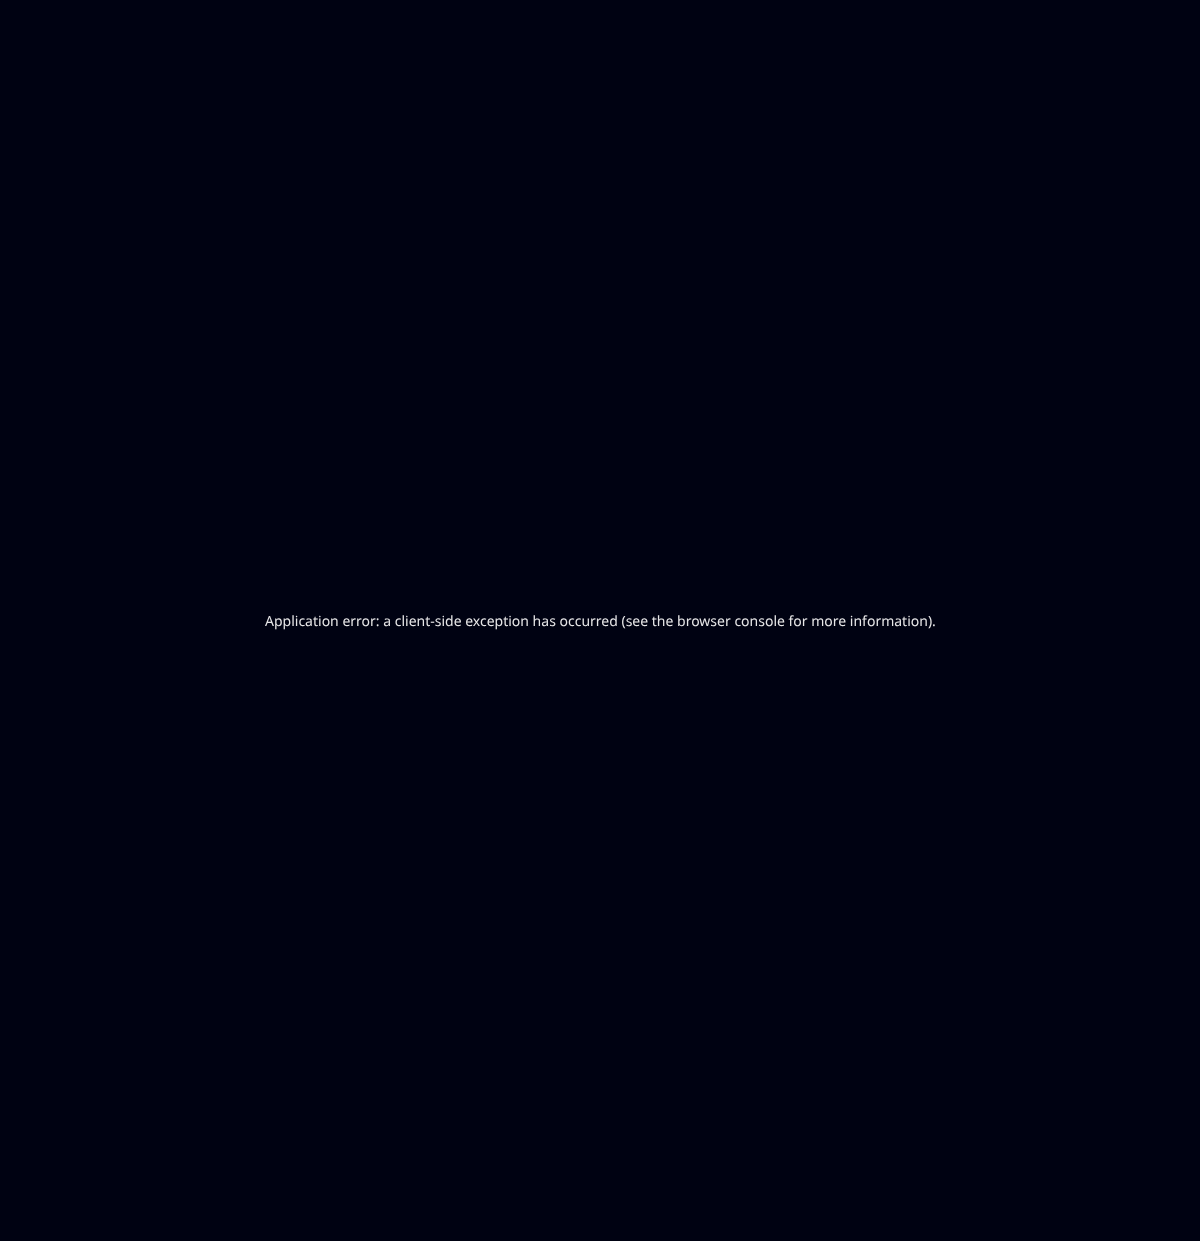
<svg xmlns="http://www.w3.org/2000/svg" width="1200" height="1241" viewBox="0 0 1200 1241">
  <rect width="100%" height="100%" fill="rgb(0,2,18)"/>
  <text x="265" y="626" font-family="Noto Sans" font-size="14" fill="rgb(230,230,231)">Application error: a client-side exception has occurred (see the browser console for more information).</text>
</svg>
